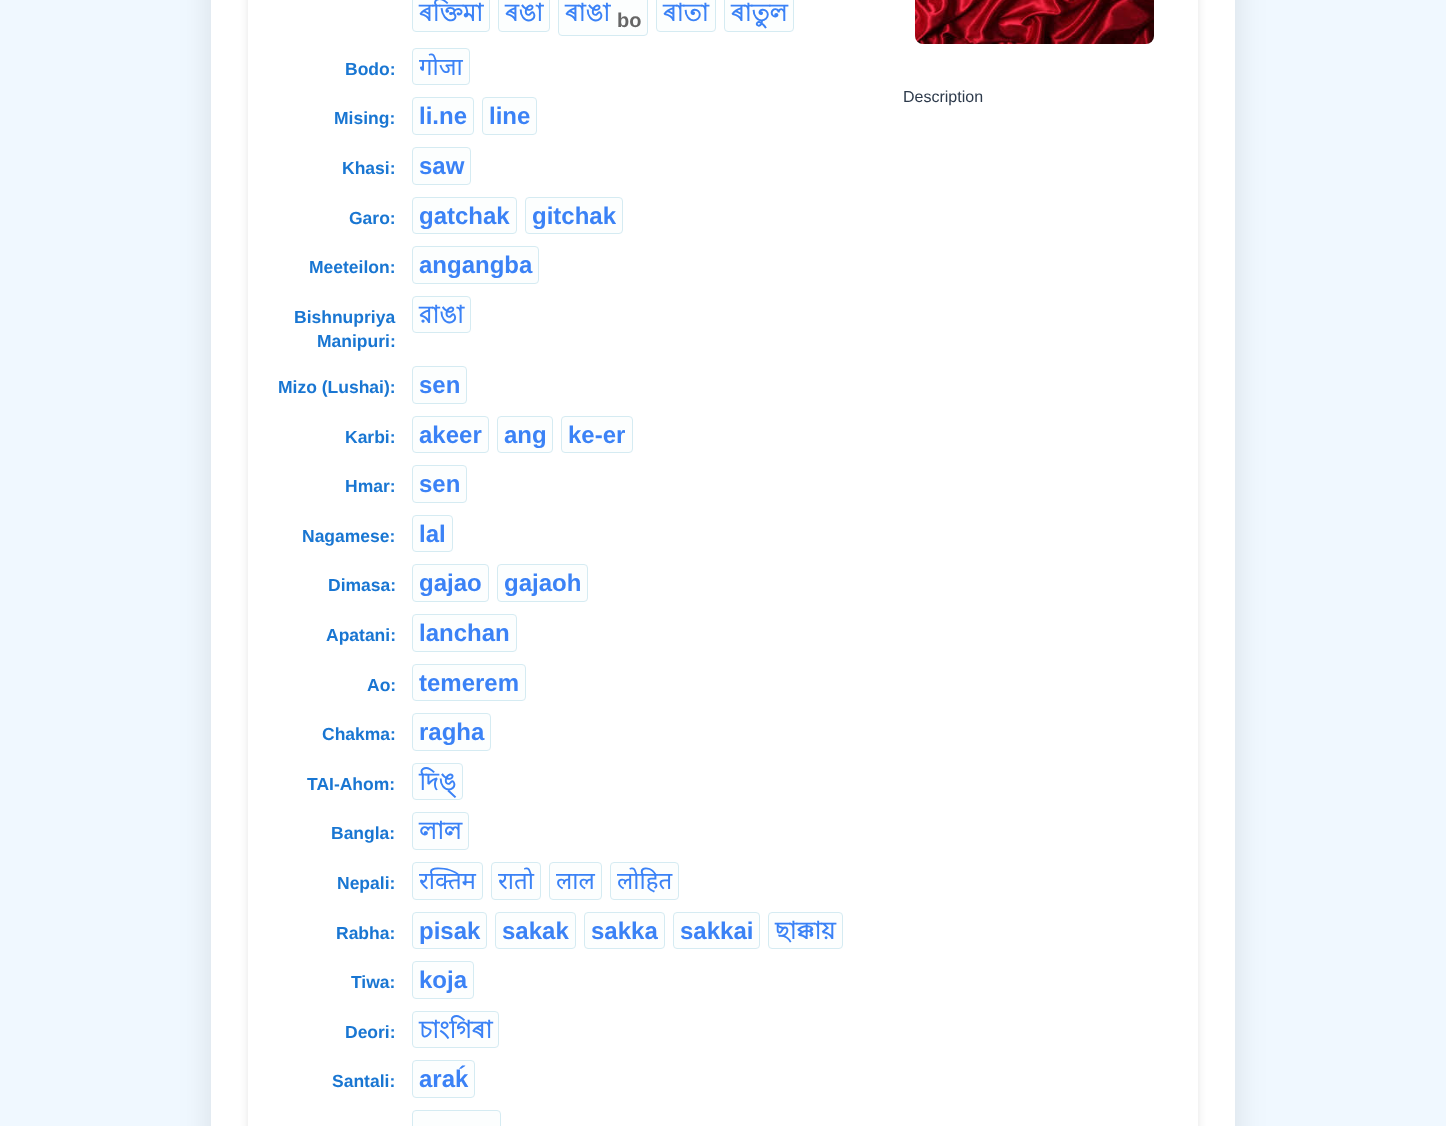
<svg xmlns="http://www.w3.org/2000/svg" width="1446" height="1126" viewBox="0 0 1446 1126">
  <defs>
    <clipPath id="clip1"><path d="M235 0H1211V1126H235ZM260-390H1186C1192.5-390 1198-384.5 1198-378V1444C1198 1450.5 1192.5 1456 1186 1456H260C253.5 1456 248 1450.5 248 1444V-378C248-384.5 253.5-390 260-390Z" clip-rule="evenodd"/></clipPath>
  </defs>
  <rect width="100%" height="100%" fill="rgb(240,248,255)"/>
  <rect x="211" y="-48" width="1024" height="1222" fill="rgba(0,0,0,0.1)" filter="blur(16px)"/>
  <rect x="211" y="0" width="1024" height="1126" fill="rgb(255,255,255)"/>
  <g clip-path="url(#clip1)">
    <rect x="248" y="-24" width="950" height="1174" rx="12" fill="rgba(0,0,0,0.1)" filter="blur(4px)"/>
  </g>
  <rect x="412.5" y="-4.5" width="77" height="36" rx="3.5" fill="rgb(252,254,254)" stroke="rgb(213,235,242)"/>
  <text x="419" y="21" font-family="Lohit Bengali" font-size="24" font-weight="bold" fill="rgb(59,130,246)">ৰক্তিমা</text>
  <rect x="498.5" y="-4.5" width="51" height="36" rx="3.5" fill="rgb(252,254,254)" stroke="rgb(213,235,242)"/>
  <text x="505" y="21" font-family="Lohit Bengali" font-size="24" font-weight="bold" fill="rgb(59,130,246)">ৰঙা</text>
  <rect x="558.5" y="-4.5" width="89" height="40" rx="3.5" fill="rgb(252,254,254)" stroke="rgb(213,235,242)"/>
  <text x="565" y="21" font-family="Lohit Bengali" font-size="24" font-weight="bold" fill="rgb(59,130,246)">ৰাঙা</text>
  <text x="617" y="27" font-family="Liberation Sans" font-size="20" font-weight="bold" fill="rgb(102,102,102)">bo</text>
  <rect x="656.5" y="-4.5" width="59" height="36" rx="3.5" fill="rgb(252,254,254)" stroke="rgb(213,235,242)"/>
  <text x="663" y="21" font-family="Lohit Bengali" font-size="24" font-weight="bold" fill="rgb(59,130,246)">ৰাতা</text>
  <rect x="724.5" y="-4.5" width="69" height="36" rx="3.5" fill="rgb(252,254,254)" stroke="rgb(213,235,242)"/>
  <text x="731" y="21" font-family="Lohit Bengali" font-size="24" font-weight="bold" fill="rgb(59,130,246)">ৰাতুল</text>
  <text x="345" y="75" font-family="Liberation Sans" font-size="17.5" font-weight="bold" fill="rgb(25,118,210)">Bodo:</text>
  <rect x="412.5" y="48.5" width="57" height="36" rx="3.5" fill="rgb(252,254,254)" stroke="rgb(213,235,242)"/>
  <text x="419" y="75" font-family="Noto Sans" font-size="24" fill="rgb(59,130,246)">गोजा</text>
  <text x="334" y="124" font-family="Liberation Sans" font-size="17.5" font-weight="bold" fill="rgb(25,118,210)">Mising:</text>
  <rect x="412.5" y="97.5" width="61" height="37" rx="3.5" fill="rgb(252,254,254)" stroke="rgb(213,235,242)"/>
  <text x="419" y="124" font-family="Liberation Sans" font-size="24" font-weight="bold" fill="rgb(59,130,246)">li.ne</text>
  <rect x="482.5" y="97.5" width="54" height="37" rx="3.5" fill="rgb(252,254,254)" stroke="rgb(213,235,242)"/>
  <text x="489" y="124" font-family="Liberation Sans" font-size="24" font-weight="bold" fill="rgb(59,130,246)">line</text>
  <text x="342" y="174" font-family="Liberation Sans" font-size="17.5" font-weight="bold" fill="rgb(25,118,210)">Khasi:</text>
  <rect x="412.5" y="147.5" width="58" height="37" rx="3.5" fill="rgb(252,254,254)" stroke="rgb(213,235,242)"/>
  <text x="419" y="174" font-family="Liberation Sans" font-size="24" font-weight="bold" fill="rgb(59,130,246)">saw</text>
  <text x="349" y="224" font-family="Liberation Sans" font-size="17.5" font-weight="bold" fill="rgb(25,118,210)">Garo:</text>
  <rect x="412.5" y="197.5" width="104" height="36" rx="3.5" fill="rgb(252,254,254)" stroke="rgb(213,235,242)"/>
  <text x="419" y="224" font-family="Liberation Sans" font-size="24" font-weight="bold" fill="rgb(59,130,246)">gatchak</text>
  <rect x="525.5" y="197.5" width="97" height="36" rx="3.5" fill="rgb(252,254,254)" stroke="rgb(213,235,242)"/>
  <text x="532" y="224" font-family="Liberation Sans" font-size="24" font-weight="bold" fill="rgb(59,130,246)">gitchak</text>
  <text x="309" y="273" font-family="Liberation Sans" font-size="17.5" font-weight="bold" fill="rgb(25,118,210)">Meeteilon:</text>
  <rect x="412.5" y="246.5" width="126" height="37" rx="3.5" fill="rgb(252,254,254)" stroke="rgb(213,235,242)"/>
  <text x="419" y="273" font-family="Liberation Sans" font-size="24" font-weight="bold" fill="rgb(59,130,246)">angangba</text>
  <g font-family="Liberation Sans" font-size="17.5" font-weight="bold" fill="rgb(25,118,210)">
    <text x="294" y="323">Bishnupriya</text>
    <text x="317" y="347">Manipuri:</text>
  </g>
  <rect x="412.5" y="296.5" width="58" height="36" rx="3.5" fill="rgb(252,254,254)" stroke="rgb(213,235,242)"/>
  <text x="419" y="323" font-family="Lohit Bengali" font-size="24" font-weight="bold" fill="rgb(59,130,246)">রাঙা</text>
  <text x="278" y="393" font-family="Liberation Sans" font-size="17.5" font-weight="bold" fill="rgb(25,118,210)">Mizo (Lushai):</text>
  <rect x="412.5" y="366.5" width="54" height="37" rx="3.5" fill="rgb(252,254,254)" stroke="rgb(213,235,242)"/>
  <text x="419" y="393" font-family="Liberation Sans" font-size="24" font-weight="bold" fill="rgb(59,130,246)">sen</text>
  <text x="345" y="443" font-family="Liberation Sans" font-size="17.5" font-weight="bold" fill="rgb(25,118,210)">Karbi:</text>
  <rect x="412.5" y="416.5" width="76" height="36" rx="3.5" fill="rgb(252,254,254)" stroke="rgb(213,235,242)"/>
  <text x="419" y="443" font-family="Liberation Sans" font-size="24" font-weight="bold" fill="rgb(59,130,246)">akeer</text>
  <rect x="497.5" y="416.5" width="55" height="36" rx="3.5" fill="rgb(252,254,254)" stroke="rgb(213,235,242)"/>
  <text x="504" y="443" font-family="Liberation Sans" font-size="24" font-weight="bold" fill="rgb(59,130,246)">ang</text>
  <rect x="561.5" y="416.5" width="71" height="36" rx="3.5" fill="rgb(252,254,254)" stroke="rgb(213,235,242)"/>
  <text x="568" y="443" font-family="Liberation Sans" font-size="24" font-weight="bold" fill="rgb(59,130,246)">ke-er</text>
  <text x="345" y="492" font-family="Liberation Sans" font-size="17.5" font-weight="bold" fill="rgb(25,118,210)">Hmar:</text>
  <rect x="412.5" y="465.5" width="54" height="37" rx="3.5" fill="rgb(252,254,254)" stroke="rgb(213,235,242)"/>
  <text x="419" y="492" font-family="Liberation Sans" font-size="24" font-weight="bold" fill="rgb(59,130,246)">sen</text>
  <text x="302" y="542" font-family="Liberation Sans" font-size="17.5" font-weight="bold" fill="rgb(25,118,210)">Nagamese:</text>
  <rect x="412.5" y="515.5" width="40" height="36" rx="3.5" fill="rgb(252,254,254)" stroke="rgb(213,235,242)"/>
  <text x="419" y="542" font-family="Liberation Sans" font-size="24" font-weight="bold" fill="rgb(59,130,246)">lal</text>
  <text x="328" y="591" font-family="Liberation Sans" font-size="17.5" font-weight="bold" fill="rgb(25,118,210)">Dimasa:</text>
  <rect x="412.5" y="564.5" width="76" height="37" rx="3.5" fill="rgb(252,254,254)" stroke="rgb(213,235,242)"/>
  <text x="419" y="591" font-family="Liberation Sans" font-size="24" font-weight="bold" fill="rgb(59,130,246)">gajao</text>
  <rect x="497.5" y="564.5" width="90" height="37" rx="3.5" fill="rgb(252,254,254)" stroke="rgb(213,235,242)"/>
  <text x="504" y="591" font-family="Liberation Sans" font-size="24" font-weight="bold" fill="rgb(59,130,246)">gajaoh</text>
  <text x="326" y="641" font-family="Liberation Sans" font-size="17.5" font-weight="bold" fill="rgb(25,118,210)">Apatani:</text>
  <rect x="412.5" y="614.5" width="104" height="37" rx="3.5" fill="rgb(252,254,254)" stroke="rgb(213,235,242)"/>
  <text x="419" y="641" font-family="Liberation Sans" font-size="24" font-weight="bold" fill="rgb(59,130,246)">lanchan</text>
  <text x="367" y="691" font-family="Liberation Sans" font-size="17.5" font-weight="bold" fill="rgb(25,118,210)">Ao:</text>
  <rect x="412.5" y="664.5" width="113" height="36" rx="3.5" fill="rgb(252,254,254)" stroke="rgb(213,235,242)"/>
  <text x="419" y="691" font-family="Liberation Sans" font-size="24" font-weight="bold" fill="rgb(59,130,246)">temerem</text>
  <text x="322" y="740" font-family="Liberation Sans" font-size="17.5" font-weight="bold" fill="rgb(25,118,210)">Chakma:</text>
  <rect x="412.5" y="713.5" width="78" height="37" rx="3.5" fill="rgb(252,254,254)" stroke="rgb(213,235,242)"/>
  <text x="419" y="740" font-family="Liberation Sans" font-size="24" font-weight="bold" fill="rgb(59,130,246)">ragha</text>
  <text x="307" y="790" font-family="Liberation Sans" font-size="17.5" font-weight="bold" fill="rgb(25,118,210)">TAI-Ahom:</text>
  <rect x="412.5" y="763.5" width="50" height="36" rx="3.5" fill="rgb(252,254,254)" stroke="rgb(213,235,242)"/>
  <text x="419" y="790" font-family="Lohit Bengali" font-size="24" font-weight="bold" fill="rgb(59,130,246)">দিঙ্</text>
  <text x="331" y="839" font-family="Liberation Sans" font-size="17.5" font-weight="bold" fill="rgb(25,118,210)">Bangla:</text>
  <rect x="412.5" y="812.5" width="56" height="37" rx="3.5" fill="rgb(252,254,254)" stroke="rgb(213,235,242)"/>
  <text x="419" y="839" font-family="Lohit Bengali" font-size="24" font-weight="bold" fill="rgb(59,130,246)">লাল</text>
  <text x="337" y="889" font-family="Liberation Sans" font-size="17.5" font-weight="bold" fill="rgb(25,118,210)">Nepali:</text>
  <rect x="412.5" y="862.5" width="70" height="37" rx="3.5" fill="rgb(252,254,254)" stroke="rgb(213,235,242)"/>
  <text x="419" y="889" font-family="Noto Sans" font-size="24" fill="rgb(59,130,246)">रक्तिम</text>
  <rect x="491.5" y="862.5" width="49" height="37" rx="3.5" fill="rgb(252,254,254)" stroke="rgb(213,235,242)"/>
  <text x="498" y="889" font-family="Noto Sans" font-size="24" fill="rgb(59,130,246)">रातो</text>
  <rect x="549.5" y="862.5" width="52" height="37" rx="3.5" fill="rgb(252,254,254)" stroke="rgb(213,235,242)"/>
  <text x="556" y="889" font-family="Noto Sans" font-size="24" fill="rgb(59,130,246)">लाल</text>
  <rect x="610.5" y="862.5" width="68" height="37" rx="3.5" fill="rgb(252,254,254)" stroke="rgb(213,235,242)"/>
  <text x="617" y="889" font-family="Noto Sans" font-size="24" fill="rgb(59,130,246)">लोहित</text>
  <text x="336" y="939" font-family="Liberation Sans" font-size="17.5" font-weight="bold" fill="rgb(25,118,210)">Rabha:</text>
  <rect x="412.5" y="912.5" width="74" height="36" rx="3.5" fill="rgb(252,254,254)" stroke="rgb(213,235,242)"/>
  <text x="419" y="939" font-family="Liberation Sans" font-size="24" font-weight="bold" fill="rgb(59,130,246)">pisak</text>
  <rect x="495.5" y="912.5" width="80" height="36" rx="3.5" fill="rgb(252,254,254)" stroke="rgb(213,235,242)"/>
  <text x="502" y="939" font-family="Liberation Sans" font-size="24" font-weight="bold" fill="rgb(59,130,246)">sakak</text>
  <rect x="584.5" y="912.5" width="80" height="36" rx="3.5" fill="rgb(252,254,254)" stroke="rgb(213,235,242)"/>
  <text x="591" y="939" font-family="Liberation Sans" font-size="24" font-weight="bold" fill="rgb(59,130,246)">sakka</text>
  <rect x="673.5" y="912.5" width="86" height="36" rx="3.5" fill="rgb(252,254,254)" stroke="rgb(213,235,242)"/>
  <text x="680" y="939" font-family="Liberation Sans" font-size="24" font-weight="bold" fill="rgb(59,130,246)">sakkai</text>
  <rect x="768.5" y="912.5" width="74" height="36" rx="3.5" fill="rgb(252,254,254)" stroke="rgb(213,235,242)"/>
  <text x="775" y="939" font-family="Lohit Bengali" font-size="24" font-weight="bold" fill="rgb(59,130,246)">ছাক্কায়</text>
  <text x="351" y="988" font-family="Liberation Sans" font-size="17.5" font-weight="bold" fill="rgb(25,118,210)">Tiwa:</text>
  <rect x="412.5" y="961.5" width="61" height="37" rx="3.5" fill="rgb(252,254,254)" stroke="rgb(213,235,242)"/>
  <text x="419" y="988" font-family="Liberation Sans" font-size="24" font-weight="bold" fill="rgb(59,130,246)">koja</text>
  <text x="345" y="1038" font-family="Liberation Sans" font-size="17.5" font-weight="bold" fill="rgb(25,118,210)">Deori:</text>
  <rect x="412.5" y="1011.5" width="86" height="36" rx="3.5" fill="rgb(252,254,254)" stroke="rgb(213,235,242)"/>
  <text x="419" y="1038" font-family="Lohit Bengali" font-size="24" font-weight="bold" fill="rgb(59,130,246)">চাংগিৰা</text>
  <text x="332" y="1087" font-family="Liberation Sans" font-size="17.5" font-weight="bold" fill="rgb(25,118,210)">Santali:</text>
  <rect x="412.5" y="1060.5" width="62" height="37" rx="3.5" fill="rgb(252,254,254)" stroke="rgb(213,235,242)"/>
  <text x="419" y="1087" font-family="Liberation Sans" font-size="24" font-weight="bold" fill="rgb(59,130,246)">araḱ</text>
  <rect x="412.5" y="1110.5" width="88" height="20" rx="3.5" fill="rgb(252,254,254)" stroke="rgb(213,235,242)"/>
  <image x="915" y="0" width="239" height="44" href="pic1.png"/>
  <text x="903" y="102" font-family="Liberation Sans" font-size="16" fill="rgb(45,58,75)">Description</text>
</svg>
